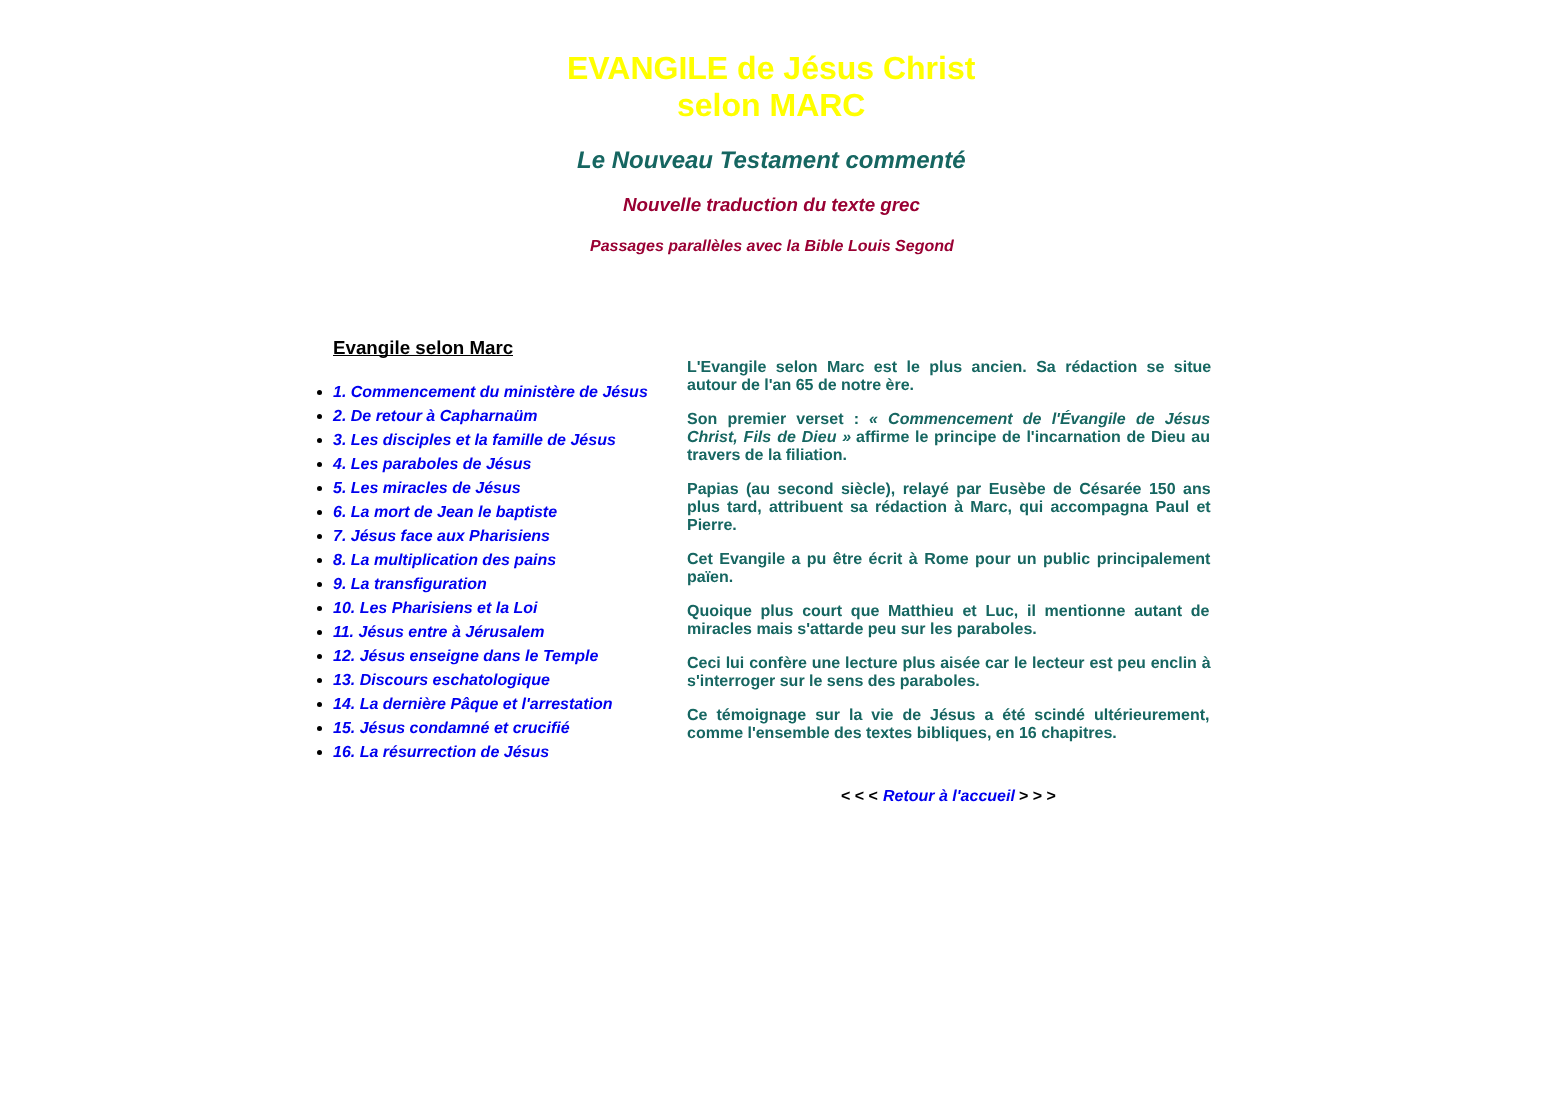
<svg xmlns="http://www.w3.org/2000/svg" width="1543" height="1103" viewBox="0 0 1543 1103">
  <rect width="100%" height="100%" fill="rgb(255,255,255)"/>
  <g font-family="Liberation Sans" font-size="32" font-weight="bold" fill="rgb(255,255,0)">
    <text x="567" y="79">EVANGILE de Jésus Christ</text>
    <text x="677" y="116">selon MARC</text>
  </g>
  <text x="577" y="168" font-family="Liberation Sans" font-size="24" font-weight="bold" font-style="italic" fill="rgb(22,102,97)">Le Nouveau Testament commenté</text>
  <text x="623" y="211" font-family="Liberation Sans" font-size="18.75" font-weight="bold" font-style="italic" fill="rgb(153,0,51)">Nouvelle traduction du texte grec</text>
  <text x="590" y="251" font-family="Liberation Sans" font-size="16" font-weight="bold" font-style="italic" fill="rgb(153,0,51)">Passages parallèles avec la Bible Louis Segond</text>
  <rect x="333" y="355" width="180" height="1" fill="rgb(0,0,0)"/>
  <text x="333" y="354" font-family="Liberation Sans" font-size="18.75" font-weight="bold" fill="rgb(0,0,0)">Evangile selon Marc</text>
  <circle cx="319.5" cy="392.5" r="2.5" fill="rgb(0,0,0)"/>
  <text x="333" y="397" font-family="Liberation Sans" font-size="16" font-weight="bold" font-style="italic" fill="rgb(0,0,238)">1. Commencement du ministère de Jésus</text>
  <circle cx="319.5" cy="416.5" r="2.5" fill="rgb(0,0,0)"/>
  <text x="333" y="421" font-family="Liberation Sans" font-size="16" font-weight="bold" font-style="italic" fill="rgb(0,0,238)">2. De retour à Capharnaüm</text>
  <circle cx="319.5" cy="440.5" r="2.5" fill="rgb(0,0,0)"/>
  <text x="333" y="445" font-family="Liberation Sans" font-size="16" font-weight="bold" font-style="italic" fill="rgb(0,0,238)">3. Les disciples et la famille de Jésus</text>
  <circle cx="319.5" cy="464.5" r="2.5" fill="rgb(0,0,0)"/>
  <text x="333" y="469" font-family="Liberation Sans" font-size="16" font-weight="bold" font-style="italic" fill="rgb(0,0,238)">4. Les paraboles de Jésus</text>
  <circle cx="319.5" cy="488.5" r="2.5" fill="rgb(0,0,0)"/>
  <text x="333" y="493" font-family="Liberation Sans" font-size="16" font-weight="bold" font-style="italic" fill="rgb(0,0,238)">5. Les miracles de Jésus</text>
  <circle cx="319.5" cy="512.5" r="2.5" fill="rgb(0,0,0)"/>
  <text x="333" y="517" font-family="Liberation Sans" font-size="16" font-weight="bold" font-style="italic" fill="rgb(0,0,238)">6. La mort de Jean le baptiste</text>
  <circle cx="319.5" cy="536.5" r="2.5" fill="rgb(0,0,0)"/>
  <text x="333" y="541" font-family="Liberation Sans" font-size="16" font-weight="bold" font-style="italic" fill="rgb(0,0,238)">7. Jésus face aux Pharisiens</text>
  <circle cx="319.5" cy="560.5" r="2.5" fill="rgb(0,0,0)"/>
  <text x="333" y="565" font-family="Liberation Sans" font-size="16" font-weight="bold" font-style="italic" fill="rgb(0,0,238)">8. La multiplication des pains</text>
  <circle cx="319.5" cy="584.5" r="2.5" fill="rgb(0,0,0)"/>
  <text x="333" y="589" font-family="Liberation Sans" font-size="16" font-weight="bold" font-style="italic" fill="rgb(0,0,238)">9. La transfiguration</text>
  <circle cx="319.5" cy="608.5" r="2.5" fill="rgb(0,0,0)"/>
  <text x="333" y="613" font-family="Liberation Sans" font-size="16" font-weight="bold" font-style="italic" fill="rgb(0,0,238)">10. Les Pharisiens et la Loi</text>
  <circle cx="319.5" cy="632.5" r="2.5" fill="rgb(0,0,0)"/>
  <text x="333" y="637" font-family="Liberation Sans" font-size="16" font-weight="bold" font-style="italic" fill="rgb(0,0,238)">11. Jésus entre à Jérusalem</text>
  <circle cx="319.5" cy="656.5" r="2.5" fill="rgb(0,0,0)"/>
  <text x="333" y="661" font-family="Liberation Sans" font-size="16" font-weight="bold" font-style="italic" fill="rgb(0,0,238)">12. Jésus enseigne dans le Temple</text>
  <circle cx="319.5" cy="680.5" r="2.5" fill="rgb(0,0,0)"/>
  <text x="333" y="685" font-family="Liberation Sans" font-size="16" font-weight="bold" font-style="italic" fill="rgb(0,0,238)">13. Discours eschatologique</text>
  <circle cx="319.5" cy="704.5" r="2.5" fill="rgb(0,0,0)"/>
  <text x="333" y="709" font-family="Liberation Sans" font-size="16" font-weight="bold" font-style="italic" fill="rgb(0,0,238)">14. La dernière Pâque et l'arrestation</text>
  <circle cx="319.5" cy="728.5" r="2.5" fill="rgb(0,0,0)"/>
  <text x="333" y="733" font-family="Liberation Sans" font-size="16" font-weight="bold" font-style="italic" fill="rgb(0,0,238)">15. Jésus condamné et crucifié</text>
  <circle cx="319.5" cy="752.5" r="2.5" fill="rgb(0,0,0)"/>
  <text x="333" y="757" font-family="Liberation Sans" font-size="16" font-weight="bold" font-style="italic" fill="rgb(0,0,238)">16. La résurrection de Jésus</text>
  <g font-family="Liberation Sans" font-size="16" font-weight="bold" fill="rgb(22,102,97)">
    <text>
      <tspan x="687" y="372" word-spacing="5">L'Evangile selon Marc est le plus ancien. Sa rédaction se situe</tspan>
      <tspan x="687" y="390">autour de l'an 65 de notre ère.</tspan>
    </text>
    <text x="687" y="424" word-spacing="5.75">Son premier verset :</text>
  </g>
  <g font-family="Liberation Sans" font-size="16" font-weight="bold" font-style="italic" fill="rgb(22,102,97)">
    <text x="869" y="424" word-spacing="5.75">« Commencement de l'Évangile de Jésus</text>
    <text x="687" y="442" word-spacing="1.5">Christ, Fils de Dieu »</text>
  </g>
  <g font-family="Liberation Sans" font-size="16" font-weight="bold" fill="rgb(22,102,97)">
    <text x="856" y="442" word-spacing="1.25">affirme le principe de l'incarnation de Dieu au</text>
    <text x="687" y="460">travers de la filiation.</text>
    <text>
      <tspan x="687" y="494" word-spacing="3">Papias (au second siècle), relayé par Eusèbe de Césarée 150 ans</tspan>
      <tspan x="687" y="512" word-spacing="2.75">plus tard, attribuent sa rédaction à Marc, qui accompagna Paul et</tspan>
      <tspan x="687" y="530">Pierre.</tspan>
    </text>
    <text>
      <tspan x="687" y="564" word-spacing="2">Cet Evangile a pu être écrit à Rome pour un public principalement</tspan>
      <tspan x="687" y="582">païen.</tspan>
    </text>
    <text>
      <tspan x="687" y="616" word-spacing="4.25">Quoique plus court que Matthieu et Luc, il mentionne autant de</tspan>
      <tspan x="687" y="634">miracles mais s'attarde peu sur les paraboles.</tspan>
    </text>
    <text>
      <tspan x="687" y="668" word-spacing="0.4">Ceci lui confère une lecture plus aisée car le lecteur est peu enclin à</tspan>
      <tspan x="687" y="686">s'interroger sur le sens des paraboles.</tspan>
    </text>
    <text>
      <tspan x="687" y="720" word-spacing="4.5">Ce témoignage sur la vie de Jésus a été scindé ultérieurement,</tspan>
      <tspan x="687" y="738">comme l'ensemble des textes bibliques, en 16 chapitres.</tspan>
    </text>
  </g>
  <text x="841" y="801" font-family="Liberation Sans" font-size="16" font-weight="bold" fill="rgb(0,0,0)">&lt; &lt; &lt;</text>
  <text x="883" y="801" font-family="Liberation Sans" font-size="16" font-weight="bold" font-style="italic" fill="rgb(0,0,238)">Retour à l'accueil</text>
  <text x="1019" y="801" font-family="Liberation Sans" font-size="16" font-weight="bold" fill="rgb(0,0,0)">&gt; &gt; &gt;</text>
</svg>
